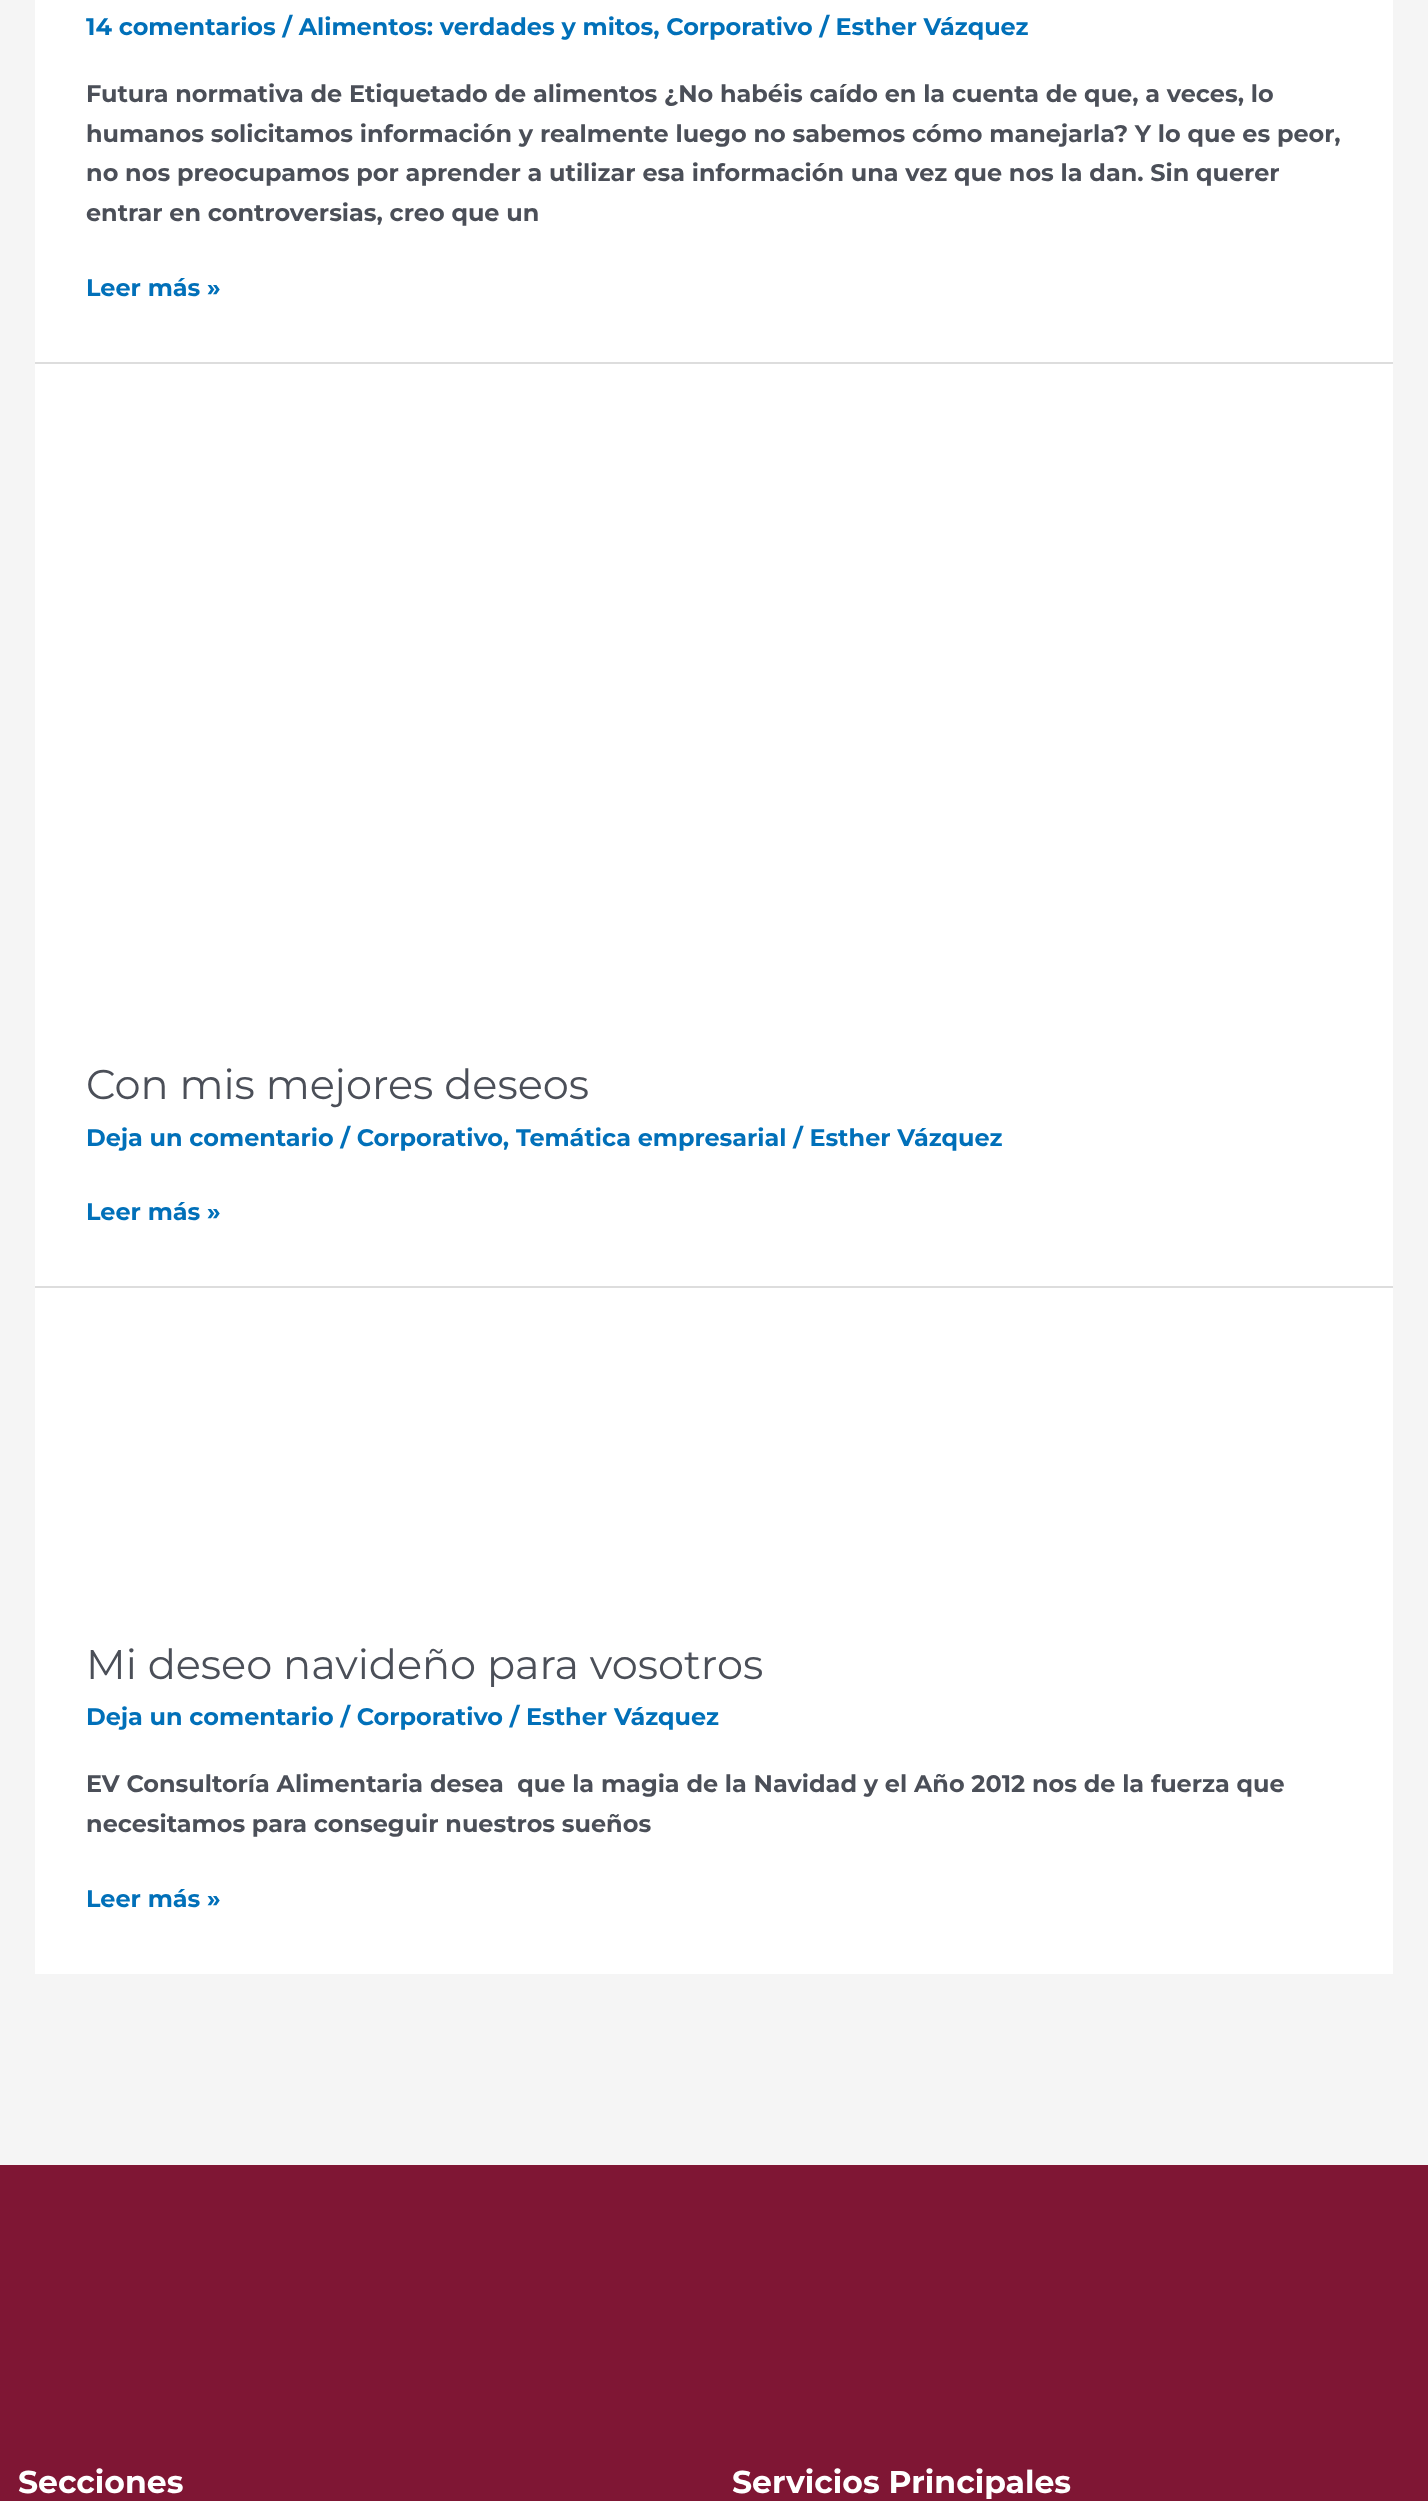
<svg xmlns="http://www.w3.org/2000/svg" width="1428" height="2501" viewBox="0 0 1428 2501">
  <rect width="100%" height="100%" fill="rgb(245,245,245)"/>
  <rect x="35" y="0" width="1358" height="362" fill="rgb(255,255,255)"/>
  <rect x="35" y="362" width="1358" height="2" fill="rgb(221,221,221)"/>
  <text x="86" y="35" font-family="Montserrat" font-size="23.95" font-weight="bold" fill="rgb(1,112,185)">14 comentarios / Alimentos: verdades y mitos, Corporativo / Esther Vázquez</text>
  <g font-family="Montserrat" font-size="23.95" font-weight="bold" fill="rgb(75,79,88)">
    <text>
      <tspan x="86" y="102">Futura normativa de Etiquetado de alimentos ¿No habéis caído en la cuenta de que, a veces, lo</tspan>
      <tspan x="86" y="142">humanos solicitamos información y realmente luego no sabemos cómo manejarla? Y lo que es peor,</tspan>
      <tspan x="86" y="181">no nos preocupamos por aprender a utilizar esa información una vez que nos la dan. Sin querer</tspan>
      <tspan x="86" y="221">entrar en controversias, creo que un</tspan>
    </text>
  </g>
  <text x="86" y="296" font-family="Montserrat" font-size="23.95" font-weight="bold" fill="rgb(1,112,185)">Leer más »</text>
  <rect x="35" y="364" width="1358" height="922" fill="rgb(255,255,255)"/>
  <rect x="35" y="1286" width="1358" height="2" fill="rgb(221,221,221)"/>
  <text x="86" y="1099" font-family="Montserrat" font-size="41.5" fill="rgb(75,79,88)">Con mis mejores deseos</text>
  <g font-family="Montserrat" font-size="23.95" font-weight="bold" fill="rgb(1,112,185)">
    <text x="86" y="1146">Deja un comentario / Corporativo, Temática empresarial / Esther Vázquez</text>
    <text x="86" y="1220">Leer más »</text>
  </g>
  <rect x="35" y="1288" width="1358" height="686" fill="rgb(255,255,255)"/>
  <text x="86" y="1679" font-family="Montserrat" font-size="41.5" fill="rgb(75,79,88)">Mi deseo navideño para vosotros</text>
  <text x="86" y="1725" font-family="Montserrat" font-size="23.95" font-weight="bold" fill="rgb(1,112,185)">Deja un comentario / Corporativo / Esther Vázquez</text>
  <g font-family="Montserrat" font-size="23.95" font-weight="bold" fill="rgb(75,79,88)">
    <text xml:space="preserve"><tspan x="86" y="1792">EV Consultoría Alimentaria desea  que la magia de la Navidad y el Año 2012 nos de la fuerza que</tspan><tspan x="86" y="1832">necesitamos para conseguir nuestros sueños</tspan></text>
  </g>
  <text x="86" y="1907" font-family="Montserrat" font-size="23.95" font-weight="bold" fill="rgb(1,112,185)">Leer más »</text>
  <rect x="0" y="2165" width="1428" height="336" fill="rgb(127,22,52)"/>
  <g font-family="Montserrat" font-size="31.5" font-weight="bold" fill="rgb(255,255,255)">
    <text x="18" y="2493">Secciones</text>
    <text x="732" y="2493">Servicios Principales</text>
  </g>
</svg>
